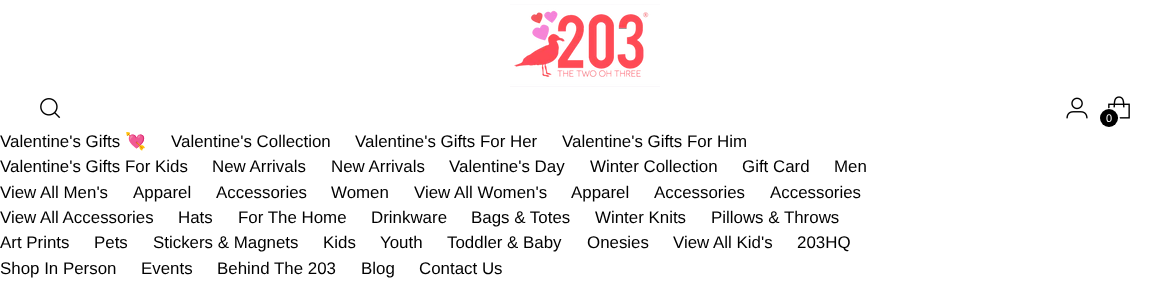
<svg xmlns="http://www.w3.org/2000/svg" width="1169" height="302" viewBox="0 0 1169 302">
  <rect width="100%" height="100%" fill="rgb(255,255,255)"/>
  <image x="510" y="4" width="150" height="83" href="pic1.png"/>
  <image x="40" y="98" width="21" height="21" href="pic2.png"/>
  <image x="1066" y="97" width="22" height="22" href="pic3.png"/>
  <image x="1108" y="96" width="22" height="23" href="pic4.png"/>
  <circle cx="1109.5" cy="118.5" r="9.5" fill="none" stroke="rgb(255,255,255)" stroke-width="2"/>
  <circle cx="1109" cy="118" r="9" fill="rgb(0,0,0)"/>
  <text x="1106" y="122" font-family="Liberation Sans" font-size="11" fill="rgb(255,255,255)">0</text>
  <text x="0" y="147" font-family="Liberation Sans" font-size="16.9" fill="rgb(0,0,0)">Valentine's Gifts</text>
  <text x="125" y="147" font-family="Noto Color Emoji" font-size="16.9" fill="rgb(0,0,0)">💘</text>
  <g font-family="Liberation Sans" font-size="16.9" fill="rgb(0,0,0)">
    <text x="171" y="147">Valentine's Collection</text>
    <text x="355" y="147">Valentine's Gifts For Her</text>
    <text x="562" y="147">Valentine's Gifts For Him</text>
    <text x="0" y="172">Valentine's Gifts For Kids</text>
    <text x="212" y="172">New Arrivals</text>
    <text x="331" y="172">New Arrivals</text>
    <text x="449" y="172">Valentine's Day</text>
    <text x="590" y="172">Winter Collection</text>
    <text x="742" y="172">Gift Card</text>
    <text x="834" y="172">Men</text>
    <text x="0" y="198">View All Men's</text>
    <text x="133" y="198">Apparel</text>
    <text x="216" y="198">Accessories</text>
    <text x="331" y="198">Women</text>
    <text x="414" y="198">View All Women's</text>
    <text x="571" y="198">Apparel</text>
    <text x="654" y="198">Accessories</text>
    <text x="770" y="198">Accessories</text>
    <text x="0" y="223">View All Accessories</text>
    <text x="178" y="223">Hats</text>
    <text x="238" y="223">For The Home</text>
    <text x="371" y="223">Drinkware</text>
    <text x="471" y="223">Bags &amp; Totes</text>
    <text x="595" y="223">Winter Knits</text>
    <text x="711" y="223">Pillows &amp; Throws</text>
    <text x="0" y="248">Art Prints</text>
    <text x="94" y="248">Pets</text>
    <text x="153" y="248">Stickers &amp; Magnets</text>
    <text x="323" y="248">Kids</text>
    <text x="380" y="248">Youth</text>
    <text x="447" y="248">Toddler &amp; Baby</text>
    <text x="587" y="248">Onesies</text>
    <text x="673" y="248">View All Kid's</text>
    <text x="797" y="248">203HQ</text>
    <text x="0" y="274">Shop In Person</text>
    <text x="141" y="274">Events</text>
    <text x="217" y="274">Behind The 203</text>
    <text x="361" y="274">Blog</text>
    <text x="419" y="274">Contact Us</text>
  </g>
</svg>
